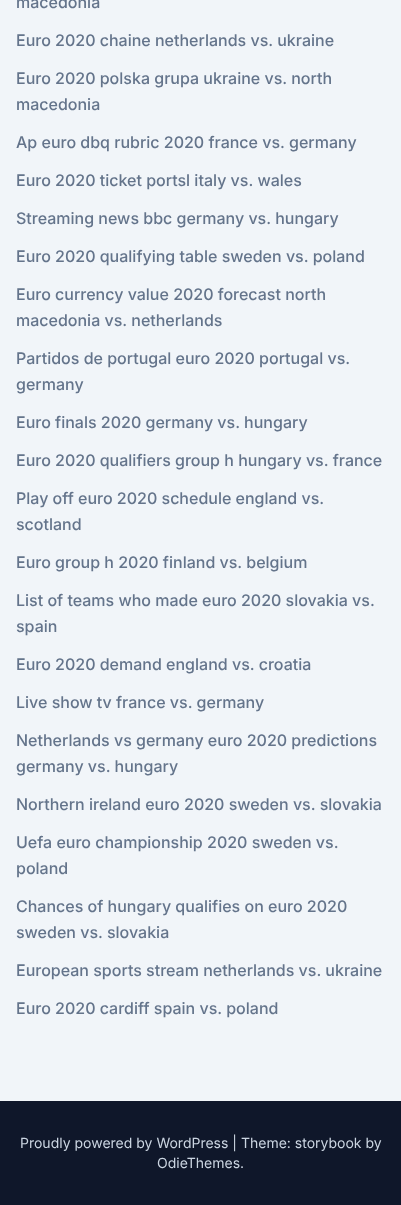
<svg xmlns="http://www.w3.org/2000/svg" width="401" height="1205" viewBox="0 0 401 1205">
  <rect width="100%" height="100%" fill="rgb(241,245,249)"/>
  <g font-family="Inter" font-size="16" font-weight="500" fill="rgb(100,116,139)">
    <text x="16" y="8">macedonia</text>
    <text x="16" y="46">Euro 2020 chaine netherlands vs. ukraine</text>
    <text>
      <tspan x="16" y="84">Euro 2020 polska grupa ukraine vs. north</tspan>
      <tspan x="16" y="110">macedonia</tspan>
    </text>
    <text x="16" y="148">Ap euro dbq rubric 2020 france vs. germany</text>
    <text x="16" y="186">Euro 2020 ticket portsl italy vs. wales</text>
    <text x="16" y="224">Streaming news bbc germany vs. hungary</text>
    <text x="16" y="262">Euro 2020 qualifying table sweden vs. poland</text>
    <text>
      <tspan x="16" y="300">Euro currency value 2020 forecast north</tspan>
      <tspan x="16" y="326">macedonia vs. netherlands</tspan>
    </text>
    <text>
      <tspan x="16" y="364">Partidos de portugal euro 2020 portugal vs.</tspan>
      <tspan x="16" y="390">germany</tspan>
    </text>
    <text x="16" y="428">Euro finals 2020 germany vs. hungary</text>
    <text x="16" y="466">Euro 2020 qualifiers group h hungary vs. france</text>
    <text>
      <tspan x="16" y="504">Play off euro 2020 schedule england vs.</tspan>
      <tspan x="16" y="530">scotland</tspan>
    </text>
    <text x="16" y="568">Euro group h 2020 finland vs. belgium</text>
    <text>
      <tspan x="16" y="606">List of teams who made euro 2020 slovakia vs.</tspan>
      <tspan x="16" y="632">spain</tspan>
    </text>
    <text x="16" y="670">Euro 2020 demand england vs. croatia</text>
    <text x="16" y="708">Live show tv france vs. germany</text>
    <text>
      <tspan x="16" y="746">Netherlands vs germany euro 2020 predictions</tspan>
      <tspan x="16" y="772">germany vs. hungary</tspan>
    </text>
    <text x="16" y="810">Northern ireland euro 2020 sweden vs. slovakia</text>
    <text>
      <tspan x="16" y="848">Uefa euro championship 2020 sweden vs.</tspan>
      <tspan x="16" y="874">poland</tspan>
    </text>
    <text>
      <tspan x="16" y="912">Chances of hungary qualifies on euro 2020</tspan>
      <tspan x="16" y="938">sweden vs. slovakia</tspan>
    </text>
    <text x="16" y="976">European sports stream netherlands vs. ukraine</text>
    <text x="16" y="1014">Euro 2020 cardiff spain vs. poland</text>
  </g>
  <rect x="0" y="1101" width="401" height="104" fill="rgb(15,23,42)"/>
  <g font-family="Inter" font-size="14" fill="rgb(203,213,225)">
    <text x="20" y="1148">Proudly powered by WordPress | Theme: storybook by</text>
    <text x="157" y="1168">OdieThemes.</text>
  </g>
</svg>
